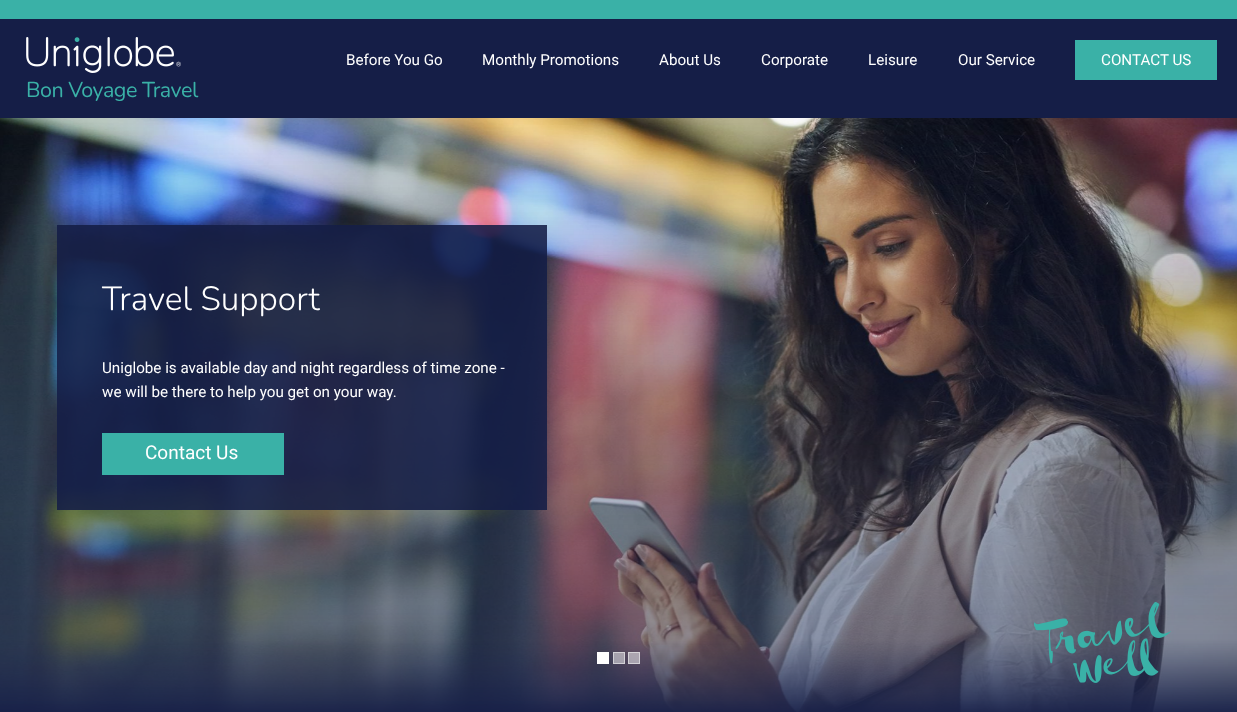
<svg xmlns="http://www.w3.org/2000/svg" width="1237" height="712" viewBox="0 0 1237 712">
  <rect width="100%" height="100%" fill="rgb(255,255,255)"/>
  <rect x="0" y="0" width="1237" height="19" fill="rgb(58,177,167)"/>
  <rect x="0" y="19" width="1237" height="99" fill="rgb(21,30,71)"/>
  <g font-family="Roboto" font-size="15.2" fill="rgb(255,255,255)">
    <text x="346" y="65">Before You Go</text>
    <text x="482" y="65">Monthly Promotions</text>
    <text x="659" y="65">About Us</text>
    <text x="761" y="65">Corporate</text>
    <text x="868" y="65">Leisure</text>
    <text x="958" y="65">Our Service</text>
  </g>
  <rect x="1075" y="40" width="142" height="40" fill="rgb(58,177,167)"/>
  <text x="1101" y="65" font-family="Roboto" font-size="15.2" fill="rgb(255,255,255)">CONTACT US</text>
  <image x="26" y="37" width="155" height="36" href="pic1.png"/>
  <text x="26" y="97" font-family="Nunito" font-size="21.5" letter-spacing="-0.5" fill="rgb(58,177,167)">Bon Voyage Travel</text>
  <image x="0" y="118" width="1237" height="594" href="pic2.png"/>
  <rect x="57" y="225" width="490" height="285" fill="rgba(21,30,71,0.88)"/>
  <text x="102" y="310" font-family="Nunito" font-size="33.5" font-weight="300" fill="rgb(255,255,255)">Travel Support</text>
  <g font-family="Roboto" font-size="15.2" fill="rgb(255,255,255)">
    <text>
      <tspan x="102" y="373">Uniglobe is available day and night regardless of time zone -</tspan>
      <tspan x="102" y="397">we will be there to help you get on your way.</tspan>
    </text>
  </g>
  <rect x="102" y="433" width="182" height="42" fill="rgb(58,177,167)"/>
  <text x="145" y="459" font-family="Roboto" font-size="19" fill="rgb(255,255,255)">Contact Us</text>
  <rect x="597" y="652" width="12" height="12" fill="rgb(255,255,255)"/>
  <rect x="613" y="652" width="12" height="12" fill="rgba(255,255,255,0.5)"/>
  <rect x="613.5" y="652.5" width="11" height="11" fill="none" stroke="rgba(255,255,255,0.5)"/>
  <rect x="628" y="652" width="12" height="12" fill="rgba(255,255,255,0.5)"/>
  <rect x="628.5" y="652.5" width="11" height="11" fill="none" stroke="rgba(255,255,255,0.5)"/>
  <image x="1034" y="602" width="137" height="81" href="pic3.png"/>
</svg>
